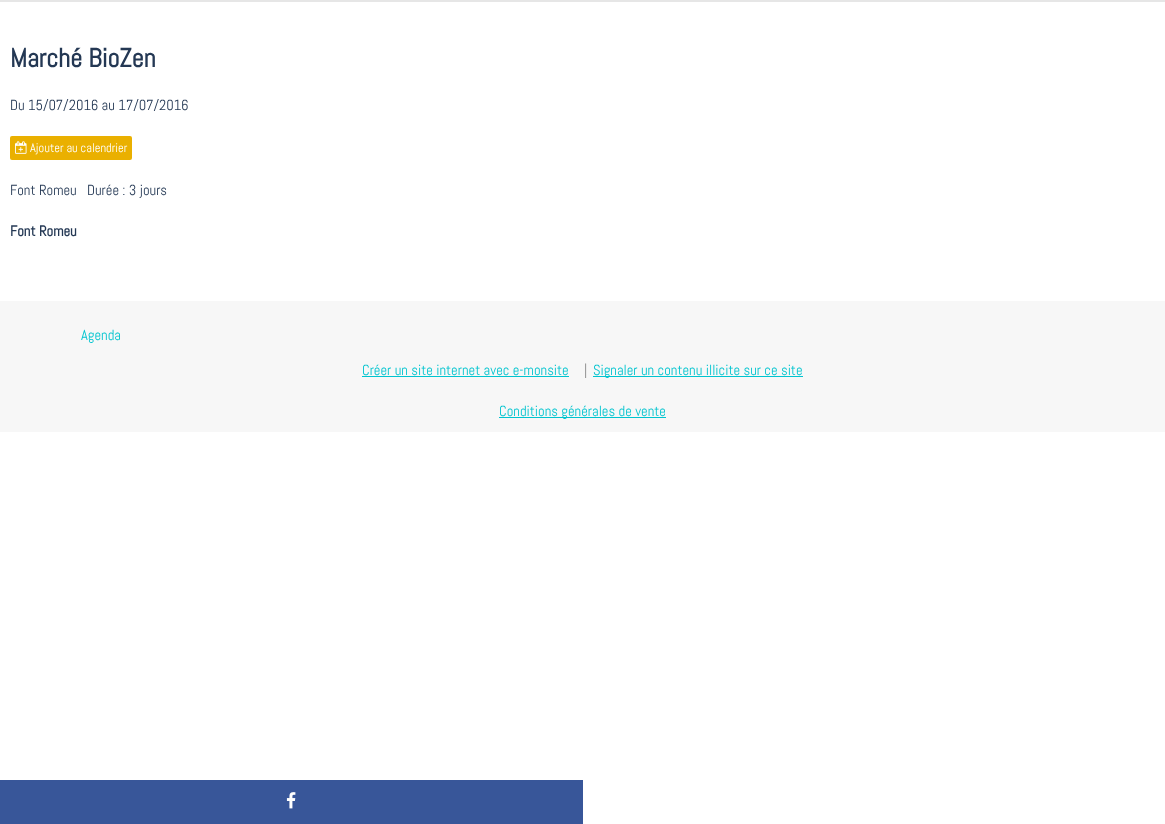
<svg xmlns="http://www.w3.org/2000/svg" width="1165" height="824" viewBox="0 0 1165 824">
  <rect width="100%" height="100%" fill="rgb(255,255,255)"/>
  <rect x="0" y="0" width="1165" height="2" fill="rgb(230,230,230)"/>
  <text x="10" y="67" font-family="Abel" font-size="26.25" font-weight="bold" fill="rgb(36,56,84)">Marché BioZen</text>
  <text x="10" y="110" font-family="Abel" font-size="14.6" fill="rgb(36,56,84)">Du 15/07/2016 au 17/07/2016</text>
  <rect x="10" y="136" width="122" height="24" rx="2" fill="rgb(234,176,0)"/>
  <image x="15" y="141" width="12" height="13" href="pic1.png"/>
  <text x="30" y="152" font-family="Abel" font-size="12.5" fill="rgb(255,255,255)">Ajouter au calendrier</text>
  <g font-family="Abel" font-size="14.6" fill="rgb(36,56,84)">
    <text x="10" y="195">Font Romeu</text>
    <text x="87" y="195">Durée : 3 jours</text>
  </g>
  <text x="10" y="236" font-family="Abel" font-size="14.6" font-weight="bold" fill="rgb(36,56,84)">Font Romeu</text>
  <rect x="0" y="301" width="1165" height="131" fill="rgb(247,247,247)"/>
  <g font-family="Abel" font-size="14.6" fill="rgb(0,196,207)">
    <text x="81" y="340">Agenda</text>
    <text x="362" y="375">Créer un site internet avec e-monsite</text>
  </g>
  <rect x="362" y="376" width="207" height="1" fill="rgb(0,196,207)"/>
  <text x="584" y="375" font-family="Abel" font-size="14.6" fill="rgb(140,140,140)">|</text>
  <rect x="593" y="376" width="210" height="1" fill="rgb(0,196,207)"/>
  <text x="593" y="375" font-family="Abel" font-size="14.6" fill="rgb(0,196,207)">Signaler un contenu illicite sur ce site</text>
  <rect x="499" y="417" width="167" height="1" fill="rgb(0,196,207)"/>
  <text x="499" y="416" font-family="Abel" font-size="14.6" fill="rgb(0,196,207)">Conditions générales de vente</text>
  <rect x="0" y="780" width="583" height="44" fill="rgb(56,86,153)"/>
  <image x="286" y="792" width="10" height="17" href="pic2.png"/>
</svg>
